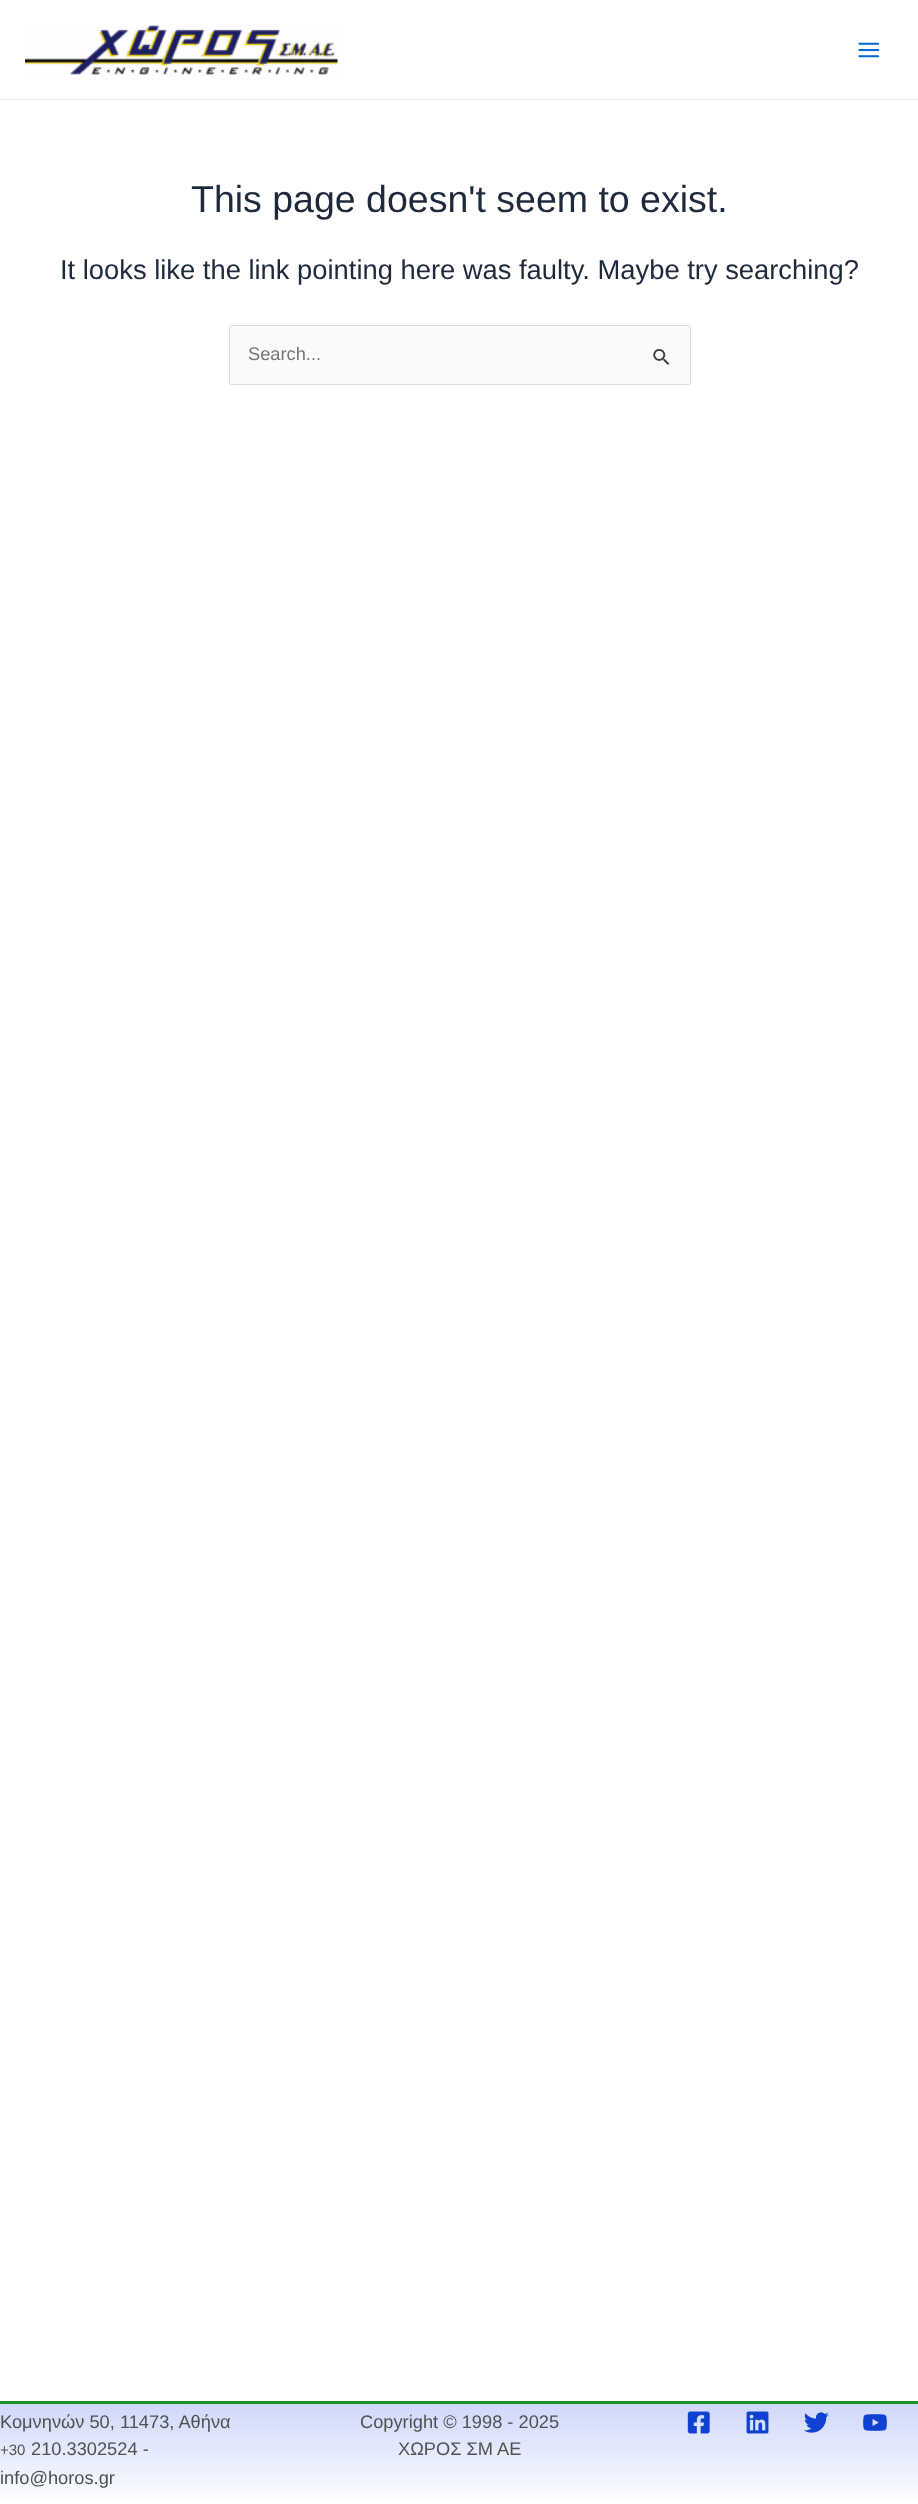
<svg xmlns="http://www.w3.org/2000/svg" width="918" height="2504" viewBox="0 0 918 2504">
  <defs>
    <linearGradient id="g1" gradientUnits="userSpaceOnUse" x1="459" y1="2404" x2="459" y2="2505"><stop offset="0" stop-color="rgb(206,216,250)"/><stop offset="1" stop-color="rgb(255,255,255)"/></linearGradient>
  </defs>
  <rect width="100%" height="100%" fill="rgb(255,255,255)"/>
  <rect x="0" y="99" width="918" height="1" fill="rgb(226,232,240)"/>
  <image x="25" y="25" width="313" height="50" href="pic1.png"/>
  <image x="858" y="42" width="22" height="16" href="pic2.png"/>
  <text x="191" y="212" font-family="Liberation Sans" font-size="37.5" fill="rgb(30,41,59)">This page doesn't seem to exist.</text>
  <text x="60" y="279" font-family="Liberation Sans" font-size="27.35" fill="rgb(30,41,59)">It looks like the link pointing here was faulty. Maybe try searching?</text>
  <rect x="229.5" y="325.5" width="461" height="59" rx="2" fill="rgb(250,250,250)" stroke="rgb(221,221,221)"/>
  <text x="248" y="360" font-family="Liberation Sans" font-size="18.25" fill="rgb(117,117,117)">Search...</text>
  <image x="653" y="349" width="17" height="16" href="pic3.png"/>
  <rect x="0" y="2404" width="918" height="96" fill="url(#g1)"/>
  <rect x="0" y="2401" width="918" height="3" fill="rgb(26,149,36)"/>
  <text x="0" y="2428" font-family="Liberation Sans" font-size="18.25" fill="rgb(81,81,81)">Κομνηνών 50, 11473, Αθήνα</text>
  <text x="0" y="2455" font-family="Liberation Sans" font-size="15" fill="rgb(81,81,81)">+30</text>
  <g font-family="Liberation Sans" font-size="18.25" fill="rgb(81,81,81)">
    <text x="31" y="2455">210.3302524 -</text>
    <text x="0" y="2484">info@horos.gr</text>
    <text x="360" y="2428">Copyright © 1998 - 2025</text>
    <text x="398" y="2455">ΧΩΡΟΣ ΣΜ ΑΕ</text>
  </g>
  <image x="687" y="2411" width="23" height="23" href="pic4.png"/>
  <image x="746" y="2411" width="23" height="23" href="pic5.png"/>
  <image x="804" y="2412" width="25" height="21" href="pic6.png"/>
  <image x="863" y="2414" width="24" height="17" href="pic7.png"/>
</svg>
